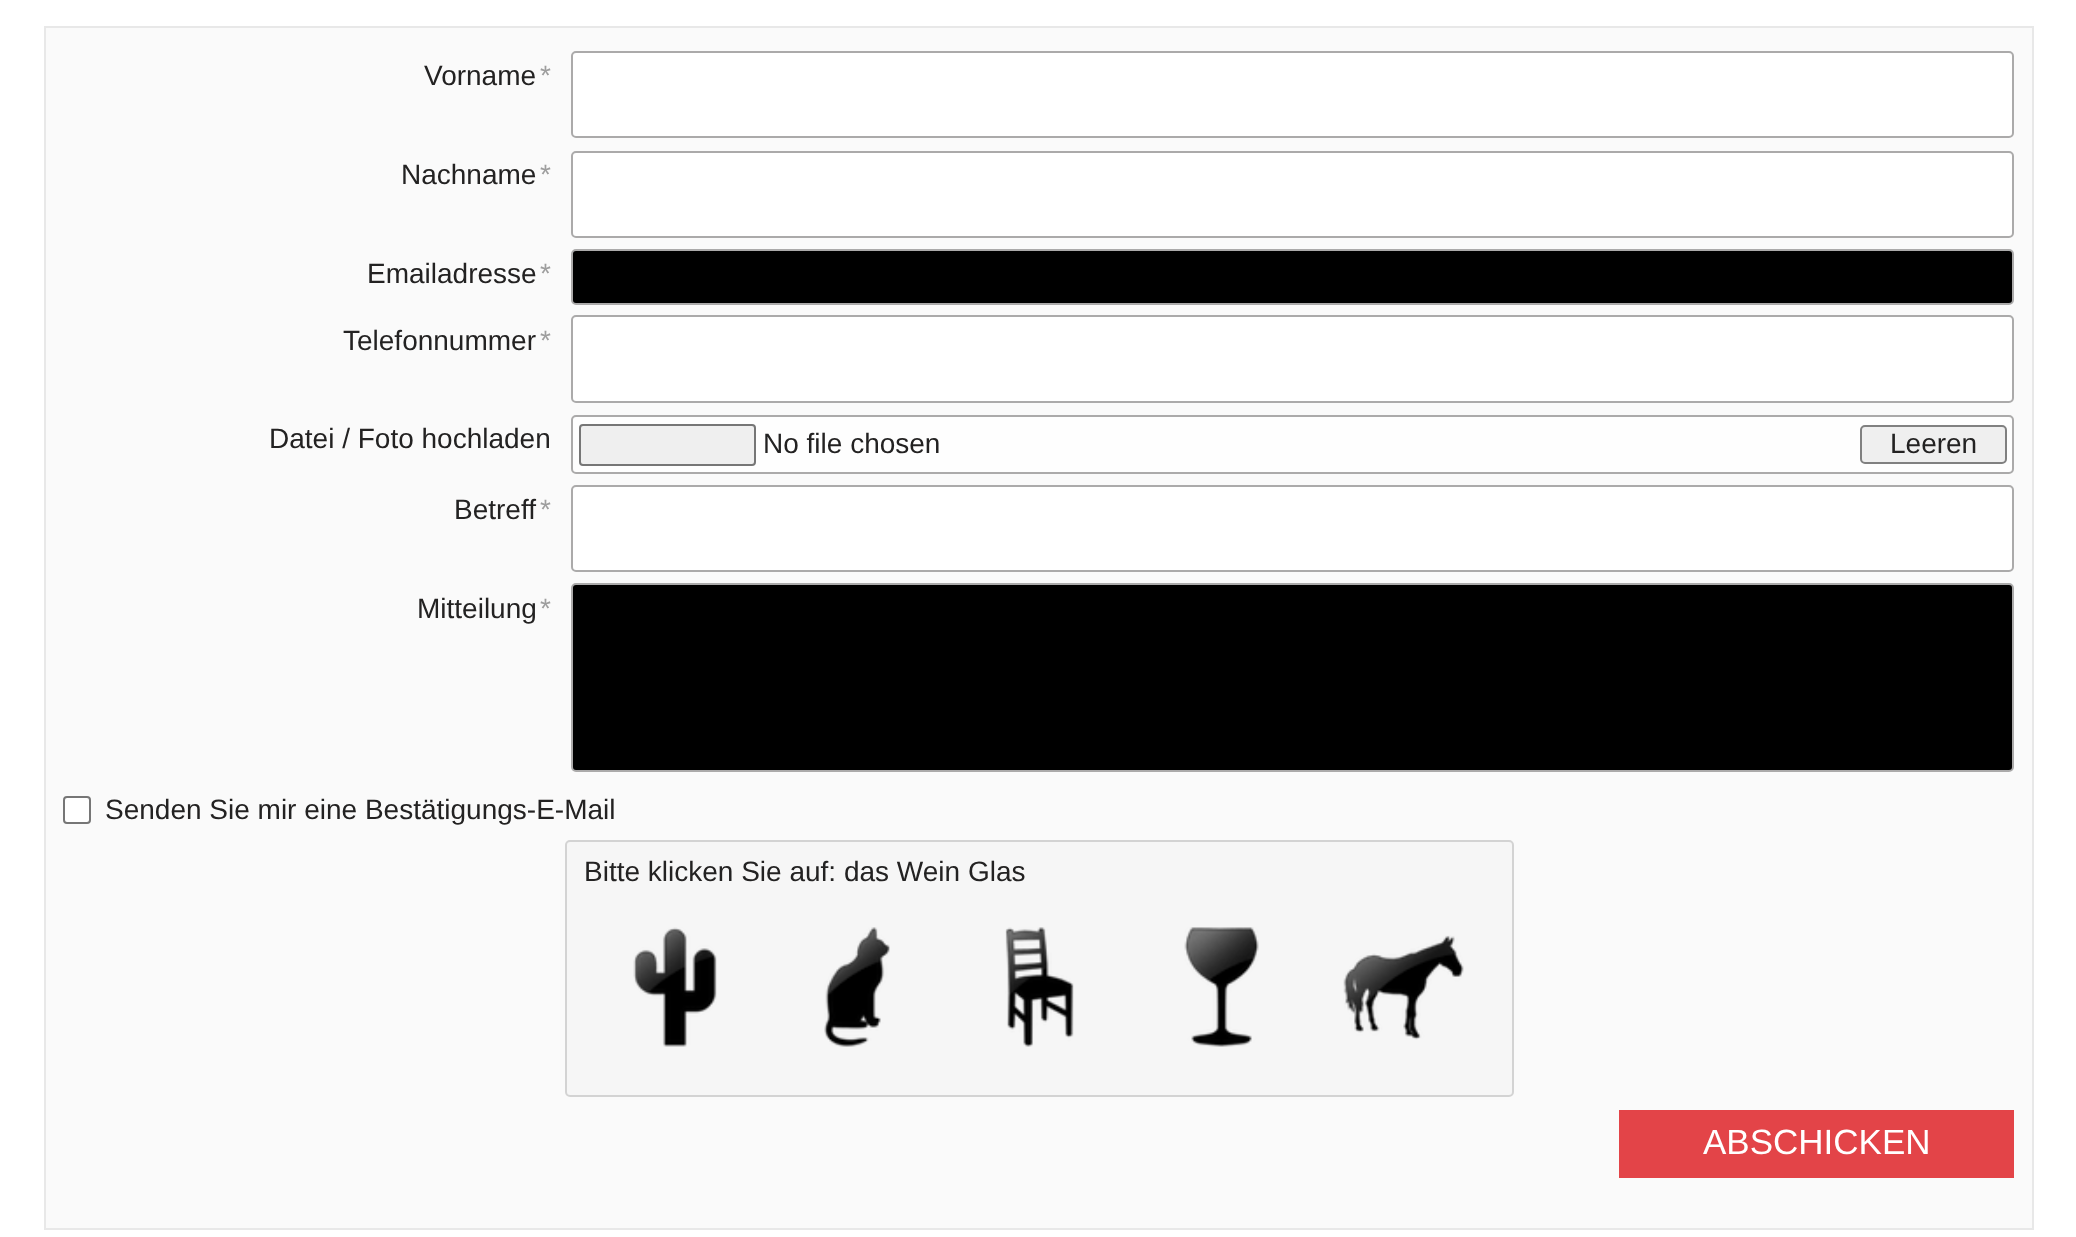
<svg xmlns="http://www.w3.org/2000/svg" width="2076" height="1237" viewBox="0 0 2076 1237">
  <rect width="100%" height="100%" fill="rgb(255,255,255)"/>
  <rect x="45" y="27" width="1988" height="1202" fill="rgb(250,250,250)" stroke="rgb(232,232,232)" stroke-width="2"/>
  <text x="424" y="85" font-family="Liberation Sans" font-size="28" fill="rgb(35,34,34)">Vorname</text>
  <text x="540" y="85" font-family="Liberation Sans" font-size="28" fill="rgb(158,158,158)">*</text>
  <rect x="572" y="52" width="1441" height="85" rx="4" fill="rgb(255,255,255)" stroke="rgb(171,170,170)" stroke-width="2"/>
  <text x="401" y="184" font-family="Liberation Sans" font-size="28" fill="rgb(35,34,34)">Nachname</text>
  <text x="540" y="184" font-family="Liberation Sans" font-size="28" fill="rgb(158,158,158)">*</text>
  <rect x="572" y="152" width="1441" height="85" rx="4" fill="rgb(255,255,255)" stroke="rgb(171,170,170)" stroke-width="2"/>
  <text x="367" y="283" font-family="Liberation Sans" font-size="28" fill="rgb(35,34,34)">Emailadresse</text>
  <text x="540" y="283" font-family="Liberation Sans" font-size="28" fill="rgb(158,158,158)">*</text>
  <rect x="572" y="250" width="1441" height="54" rx="4" fill="rgb(0,0,0)" stroke="rgb(171,170,170)" stroke-width="2"/>
  <text x="343" y="350" font-family="Liberation Sans" font-size="28" fill="rgb(35,34,34)">Telefonnummer</text>
  <text x="540" y="350" font-family="Liberation Sans" font-size="28" fill="rgb(158,158,158)">*</text>
  <rect x="572" y="316" width="1441" height="86" rx="4" fill="rgb(255,255,255)" stroke="rgb(171,170,170)" stroke-width="2"/>
  <text x="269" y="448" font-family="Liberation Sans" font-size="28" fill="rgb(35,34,34)">Datei / Foto hochladen</text>
  <rect x="572" y="416" width="1441" height="57" rx="4" fill="rgb(254,254,254)" stroke="rgb(171,170,170)" stroke-width="2"/>
  <rect x="580" y="425" width="175" height="40" rx="3" fill="rgb(239,239,239)" stroke="rgb(118,118,118)" stroke-width="2"/>
  <text x="763" y="453" font-family="Liberation Sans" font-size="28" fill="rgb(35,34,34)">No file chosen</text>
  <rect x="1861" y="426" width="145" height="37" rx="4" fill="rgb(239,239,239)" stroke="rgb(128,128,128)" stroke-width="2"/>
  <g font-family="Liberation Sans" font-size="28" fill="rgb(35,34,34)">
    <text x="1890" y="453">Leeren</text>
    <text x="454" y="519">Betreff</text>
  </g>
  <text x="540" y="519" font-family="Liberation Sans" font-size="28" fill="rgb(158,158,158)">*</text>
  <rect x="572" y="486" width="1441" height="85" rx="4" fill="rgb(255,255,255)" stroke="rgb(171,170,170)" stroke-width="2"/>
  <text x="417" y="618" font-family="Liberation Sans" font-size="28" fill="rgb(35,34,34)">Mitteilung</text>
  <text x="540" y="618" font-family="Liberation Sans" font-size="28" fill="rgb(158,158,158)">*</text>
  <rect x="572" y="584" width="1441" height="187" rx="4" fill="rgb(0,0,0)" stroke="rgb(171,170,170)" stroke-width="2"/>
  <rect x="64" y="797" width="26" height="26" rx="3" fill="rgb(255,255,255)" stroke="rgb(118,118,118)" stroke-width="2"/>
  <text x="105" y="819" font-family="Liberation Sans" font-size="28" fill="rgb(35,34,34)">Senden Sie mir eine Bestätigungs-E-Mail</text>
  <rect x="566" y="841" width="947" height="255" rx="4" fill="rgb(246,246,246)" stroke="rgb(211,211,211)" stroke-width="2"/>
  <text x="584" y="881" font-family="Liberation Sans" font-size="28" fill="rgb(35,34,34)">Bitte klicken Sie auf: das Wein Glas</text>
  <image x="633" y="927" width="84" height="120" href="pic1.png"/>
  <image x="824" y="927" width="66" height="120" href="pic2.png"/>
  <image x="1005" y="927" width="69" height="120" href="pic3.png"/>
  <image x="1184" y="927" width="75" height="120" href="pic4.png"/>
  <image x="1343" y="935" width="121" height="105" href="pic5.png"/>
  <rect x="1619" y="1110" width="395" height="68" fill="rgb(227,68,72)"/>
  <text x="1703" y="1154" font-family="Liberation Sans" font-size="35" fill="rgb(255,255,255)">ABSCHICKEN</text>
</svg>
